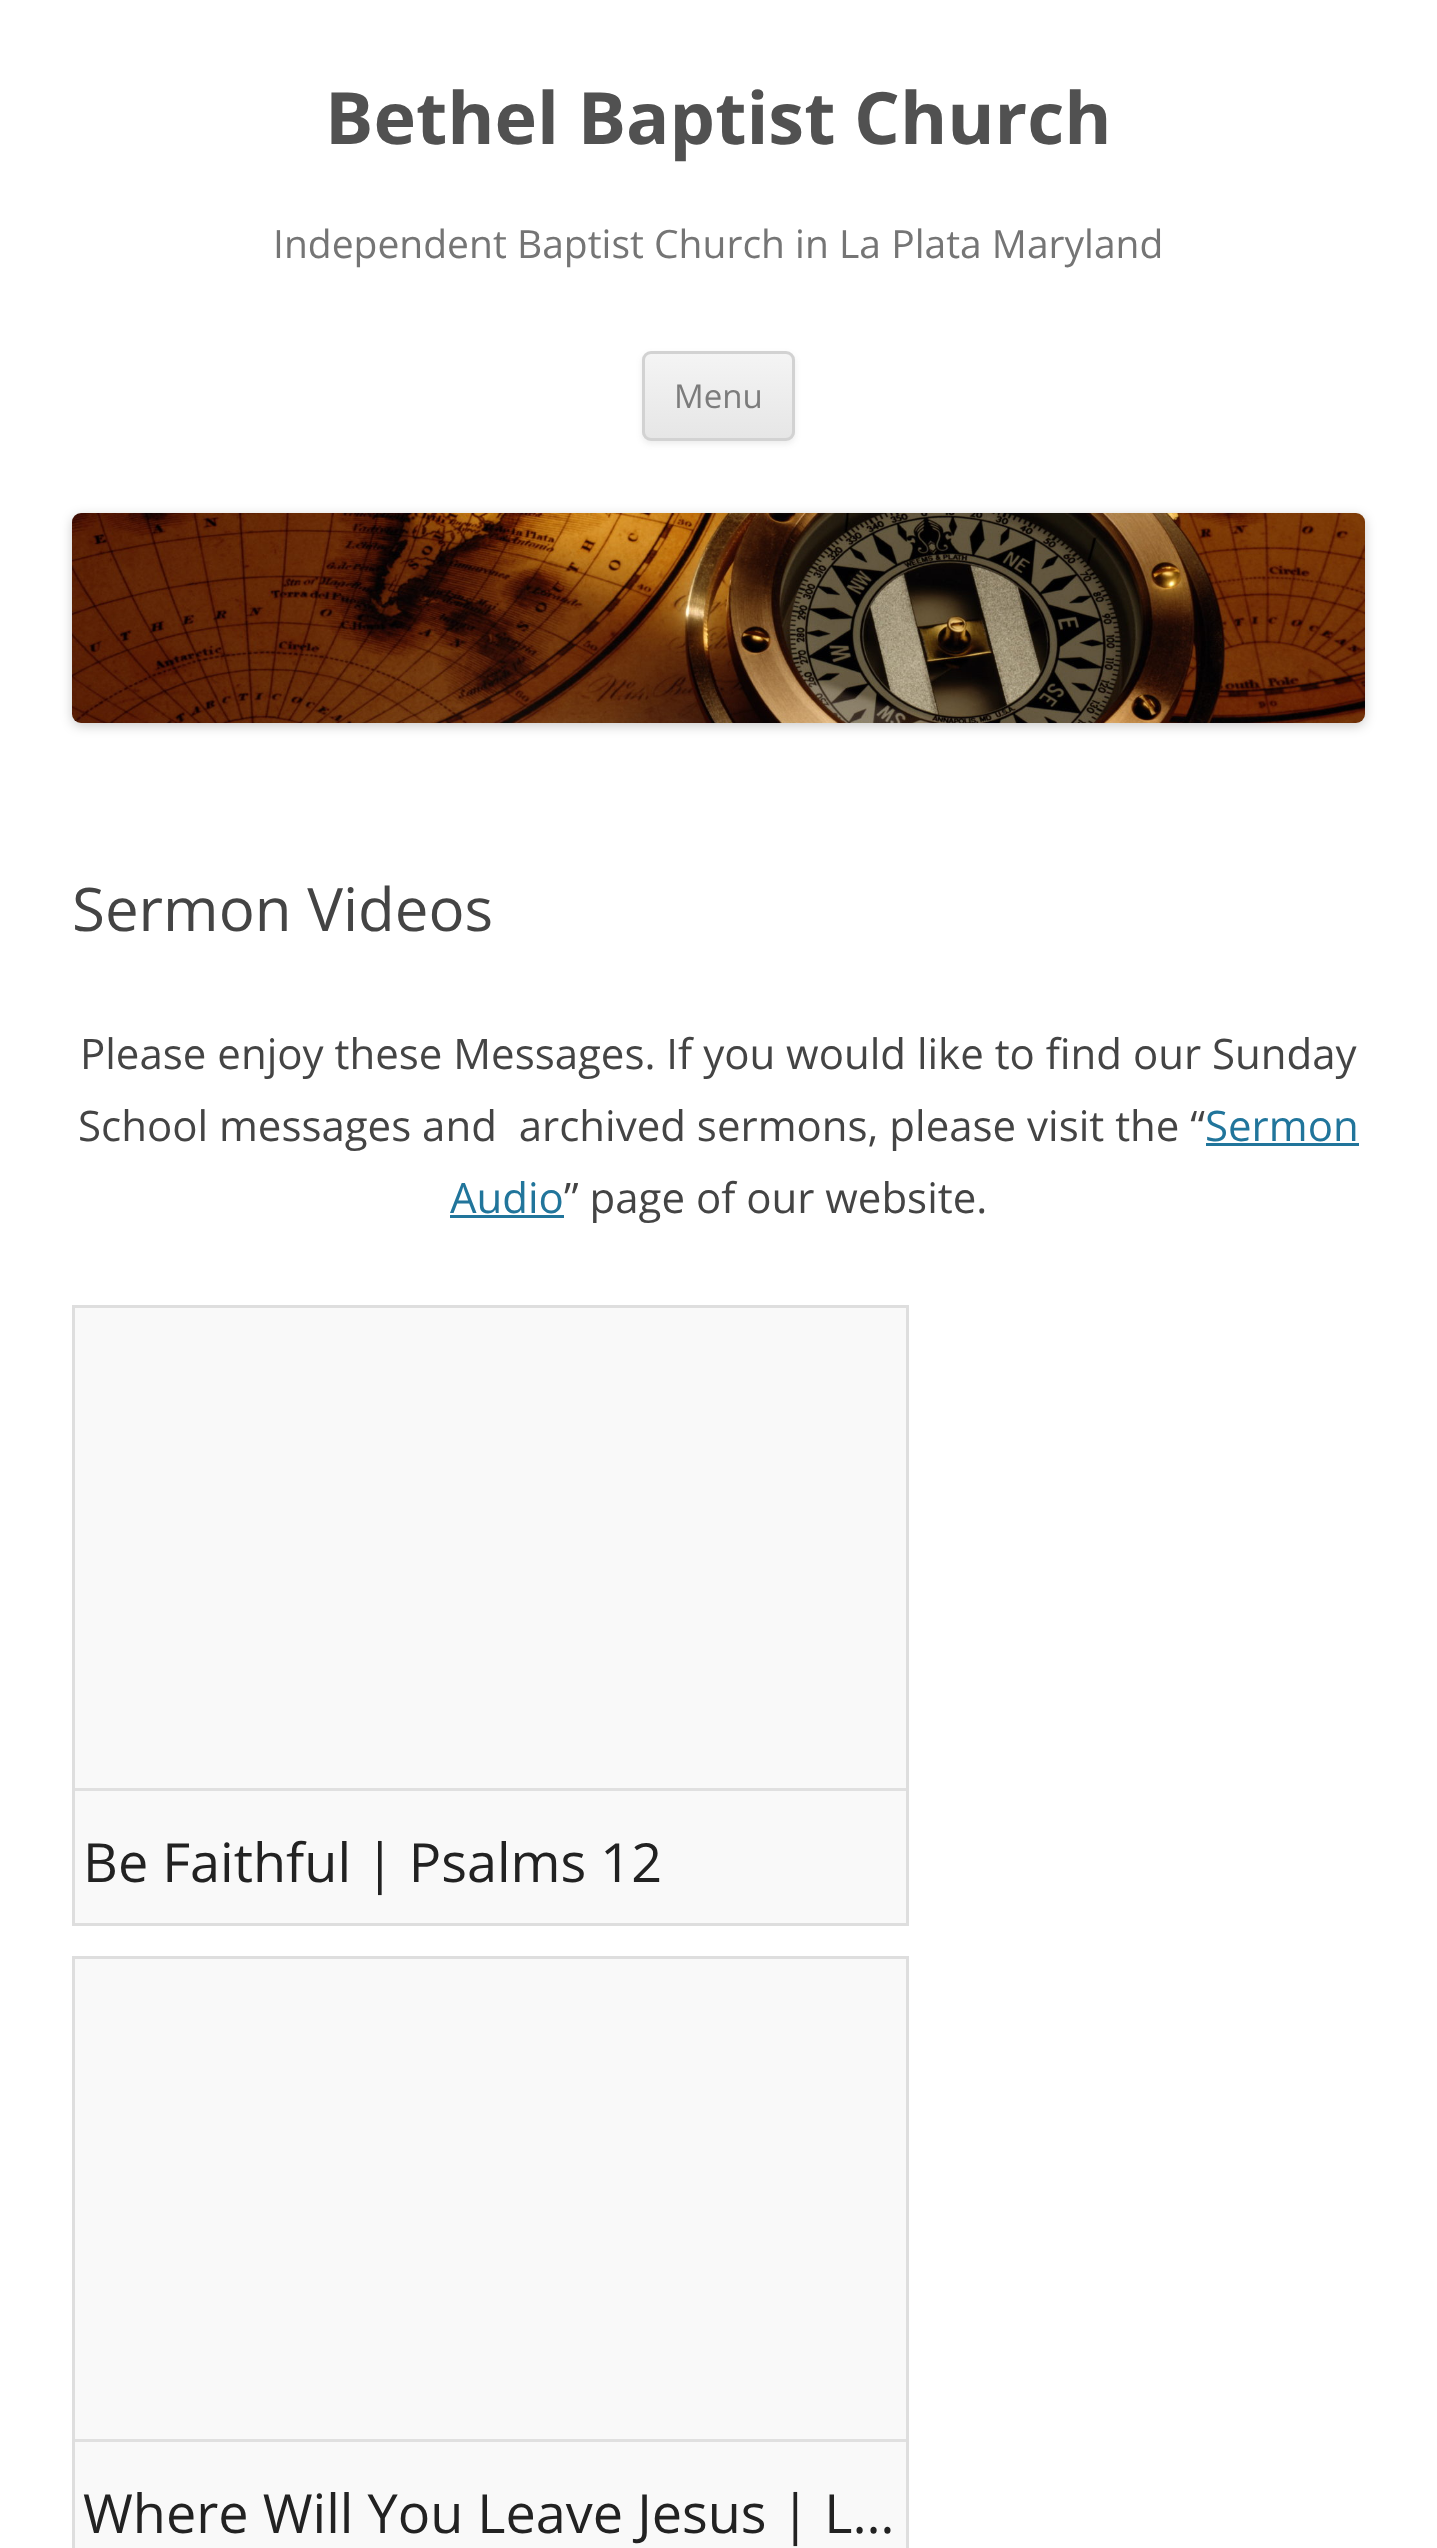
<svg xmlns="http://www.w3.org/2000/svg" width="1437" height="2548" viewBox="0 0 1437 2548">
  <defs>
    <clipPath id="clip1"><rect x="642" y="351" width="153" height="90" rx="9"/></clipPath>
    <linearGradient id="g1" gradientUnits="userSpaceOnUse" x1="719" y1="354" x2="719" y2="438"><stop offset="0" stop-color="rgb(244,244,244)"/><stop offset="1" stop-color="rgb(230,230,230)"/></linearGradient>
  </defs>
  <rect width="100%" height="100%" fill="rgb(255,255,255)"/>
  <text x="325" y="144" font-family="Open Sans" font-size="72" font-weight="bold" fill="rgb(81,81,81)">Bethel Baptist Church</text>
  <text x="273" y="258" font-family="Open Sans" font-size="39" fill="rgb(117,117,117)">Independent Baptist Church in La Plata Maryland</text>
  <rect x="642" y="354" width="153" height="90" rx="9" fill="rgba(64,64,64,0.1)" filter="blur(3px)"/>
  <g clip-path="url(#clip1)">
    <rect x="642" y="354" width="153" height="84" fill="url(#g1)"/>
  </g>
  <rect x="643.5" y="352.5" width="150" height="87" rx="7.5" fill="none" stroke="rgb(210,210,210)" stroke-width="3"/>
  <text x="674" y="408" font-family="Open Sans" font-size="33" fill="rgb(124,124,124)">Menu</text>
  <rect x="72" y="516" width="1293" height="210" rx="9" fill="rgba(0,0,0,0.2)" filter="blur(6px)"/>
  <image x="72" y="513" width="1293" height="210" href="pic1.png"/>
  <text x="72" y="931" font-family="Open Sans" font-size="60" fill="rgb(68,68,68)">Sermon Videos</text>
  <g font-family="Open Sans" font-size="42" fill="rgb(68,68,68)">
    <text x="80" y="1069">Please enjoy these Messages. If you would like to find our Sunday</text>
    <text x="78" y="1141" xml:space="preserve">School messages and  archived sermons, please visit the “</text>
  </g>
  <text x="1205" y="1141" font-family="Open Sans" font-size="42" fill="rgb(33,117,155)">Sermon</text>
  <rect x="1206" y="1143" width="153" height="3" fill="rgb(33,117,155)"/>
  <text x="450" y="1213" font-family="Open Sans" font-size="42" fill="rgb(33,117,155)">Audio</text>
  <rect x="450" y="1215" width="114" height="3" fill="rgb(33,117,155)"/>
  <text x="564" y="1213" font-family="Open Sans" font-size="42" fill="rgb(68,68,68)">” page of our website.</text>
  <rect x="73.5" y="1306.5" width="834" height="618" fill="rgb(249,249,249)" stroke="rgb(222,222,222)" stroke-width="3"/>
  <rect x="75" y="1788" width="831" height="3" fill="rgb(224,224,224)"/>
  <text x="83" y="1882" font-family="Open Sans" font-size="54" fill="rgb(34,34,34)">Be Faithful | Psalms 12</text>
  <rect x="73.5" y="1957.5" width="834" height="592" fill="rgb(249,249,249)" stroke="rgb(222,222,222)" stroke-width="3"/>
  <rect x="75" y="2439" width="831" height="3" fill="rgb(224,224,224)"/>
  <text x="83" y="2533" font-family="Open Sans" font-size="54" fill="rgb(34,34,34)">Where Will You Leave Jesus | L…</text>
</svg>
